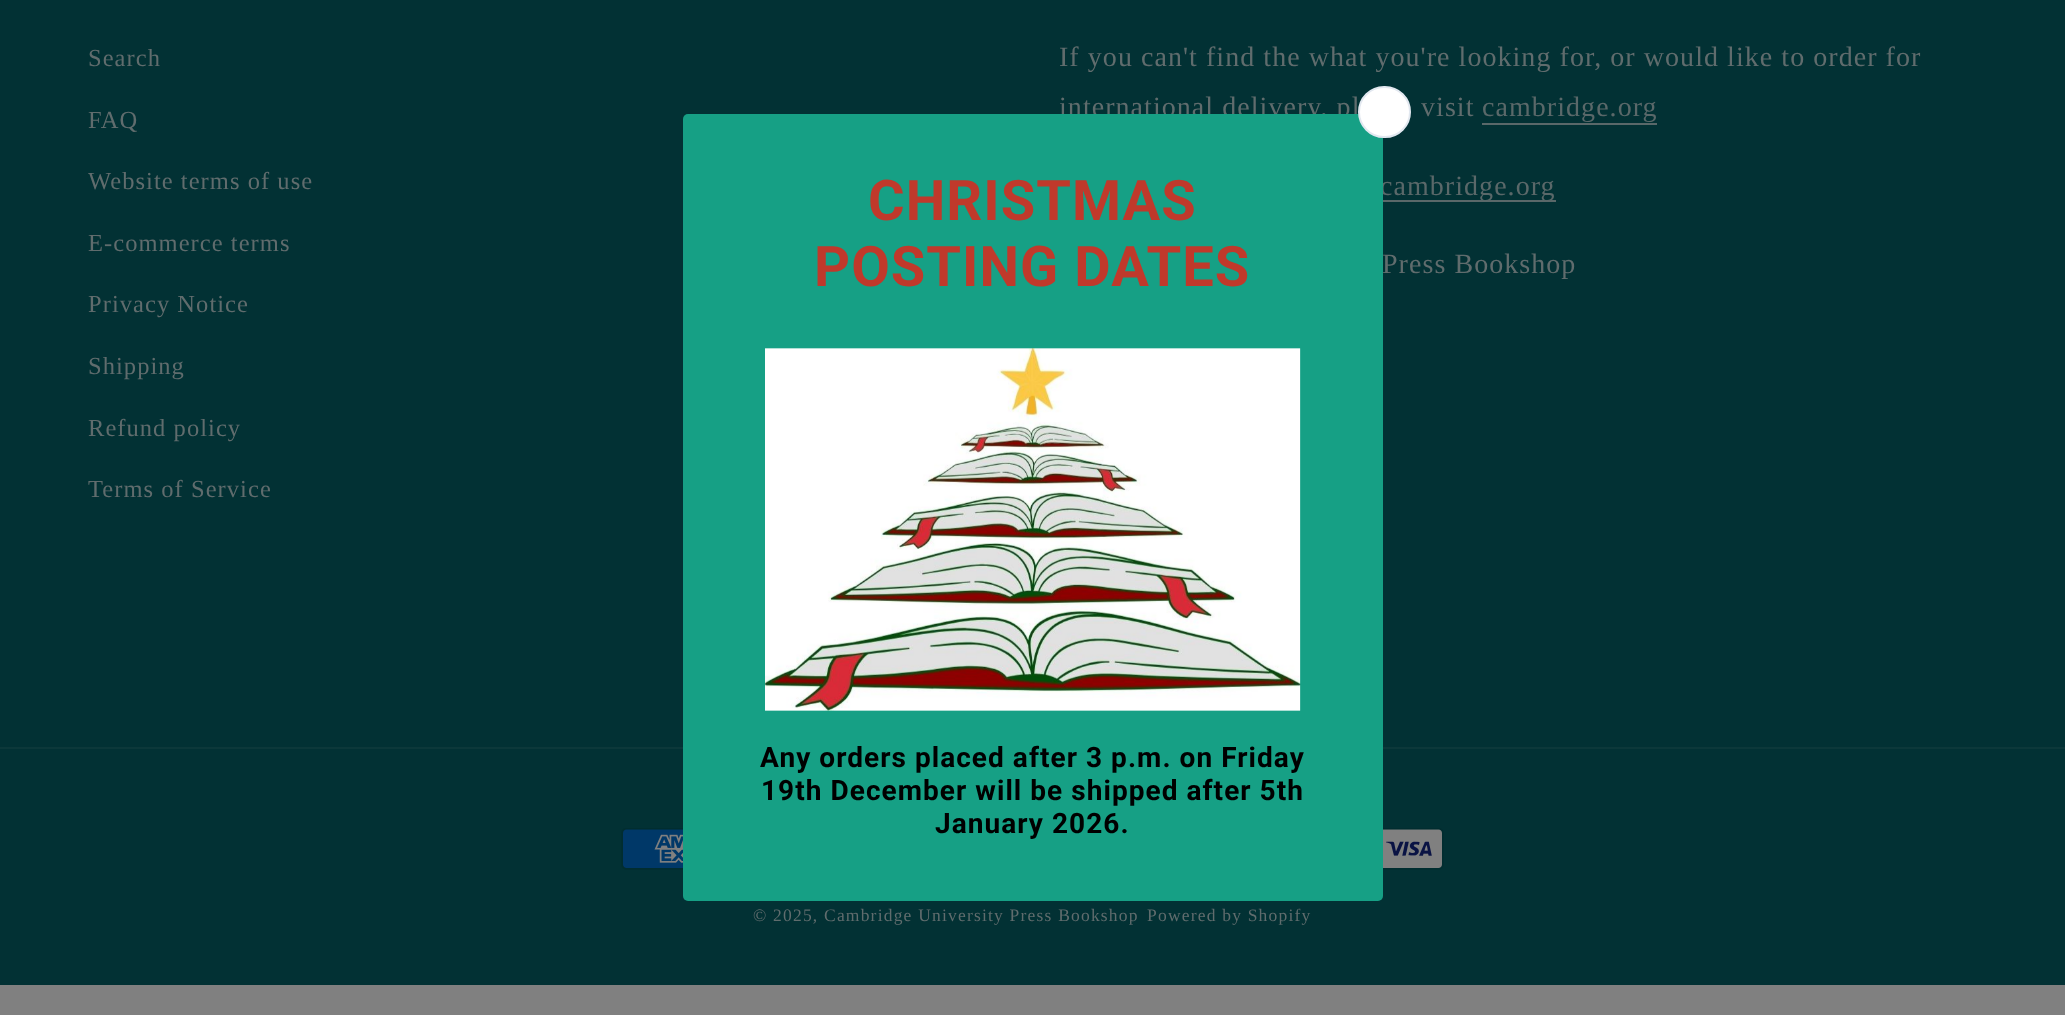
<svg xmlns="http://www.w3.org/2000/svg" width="2065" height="1015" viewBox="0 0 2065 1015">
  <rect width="100%" height="100%" fill="rgb(128,128,128)"/>
  <rect x="0" y="0" width="2065" height="985" fill="rgb(2,49,52)"/>
  <g font-family="Liberation Serif" font-size="24.5" letter-spacing="1.05" fill="rgb(96,108,109)">
    <text x="88" y="66">Search</text>
    <text x="88" y="128">FAQ</text>
    <text x="88" y="189">Website terms of use</text>
    <text x="88" y="251">E-commerce terms</text>
    <text x="88" y="312">Privacy Notice</text>
    <text x="88" y="374">Shipping</text>
    <text x="88" y="436">Refund policy</text>
    <text x="88" y="497">Terms of Service</text>
  </g>
  <g font-family="Liberation Serif" font-size="28" letter-spacing="1.05" fill="rgb(96,108,109)">
    <text>
      <tspan x="1059" y="66">If you can't find the what you're looking for, or would like to order for</tspan>
      <tspan x="1059" y="116">international delivery, pl</tspan>
    </text>
    <text x="1421" y="116">visit</text>
  </g>
  <text x="1482" y="116" font-family="Liberation Serif" font-size="28" letter-spacing="1.05" fill="rgb(90,104,105)">cambridge.org</text>
  <rect x="1482" y="123" width="175" height="2" fill="rgb(90,104,105)"/>
  <rect x="1383" y="200" width="173" height="2" fill="rgb(90,104,105)"/>
  <text x="1380" y="195" font-family="Liberation Serif" font-size="28" letter-spacing="1.05" fill="rgb(90,104,105)">cambridge.org</text>
  <text x="1382" y="273" font-family="Liberation Serif" font-size="28" letter-spacing="1.05" fill="rgb(96,108,109)">Press Bookshop</text>
  <rect x="0" y="747" width="2065" height="2" fill="rgb(12,56,58)"/>
  <image x="621" y="828" width="62" height="42" href="pic1.png"/>
  <image x="1383" y="828" width="61" height="42" href="pic2.png"/>
  <g font-family="Liberation Serif" font-size="17.5" letter-spacing="1.2" fill="rgb(96,108,109)">
    <text x="753" y="921">© 2025, Cambridge University Press Bookshop</text>
    <text x="1147" y="921">Powered by Shopify</text>
  </g>
  <rect x="683" y="114" width="700" height="787" rx="5" fill="rgb(22,160,133)"/>
  <rect x="1359" y="87" width="51" height="50" rx="25" fill="rgb(255,255,255)" stroke="rgb(226,232,240)" stroke-width="2"/>
  <g font-family="Roboto" font-size="56" font-weight="bold" letter-spacing="1.05" fill="rgb(192,57,43)">
    <text x="868" y="220">CHRISTMAS</text>
    <text x="814" y="286">POSTING DATES</text>
  </g>
  <image x="765" y="348" width="536" height="363" href="pic3.png"/>
  <g font-family="Roboto" font-size="28" font-weight="bold" letter-spacing="1.05" fill="rgb(0,0,0)">
    <text x="760" y="767">Any orders placed after 3 p.m. on Friday</text>
    <text x="761" y="800">19th December will be shipped after 5th</text>
    <text x="935" y="833">January 2026.</text>
  </g>
</svg>
